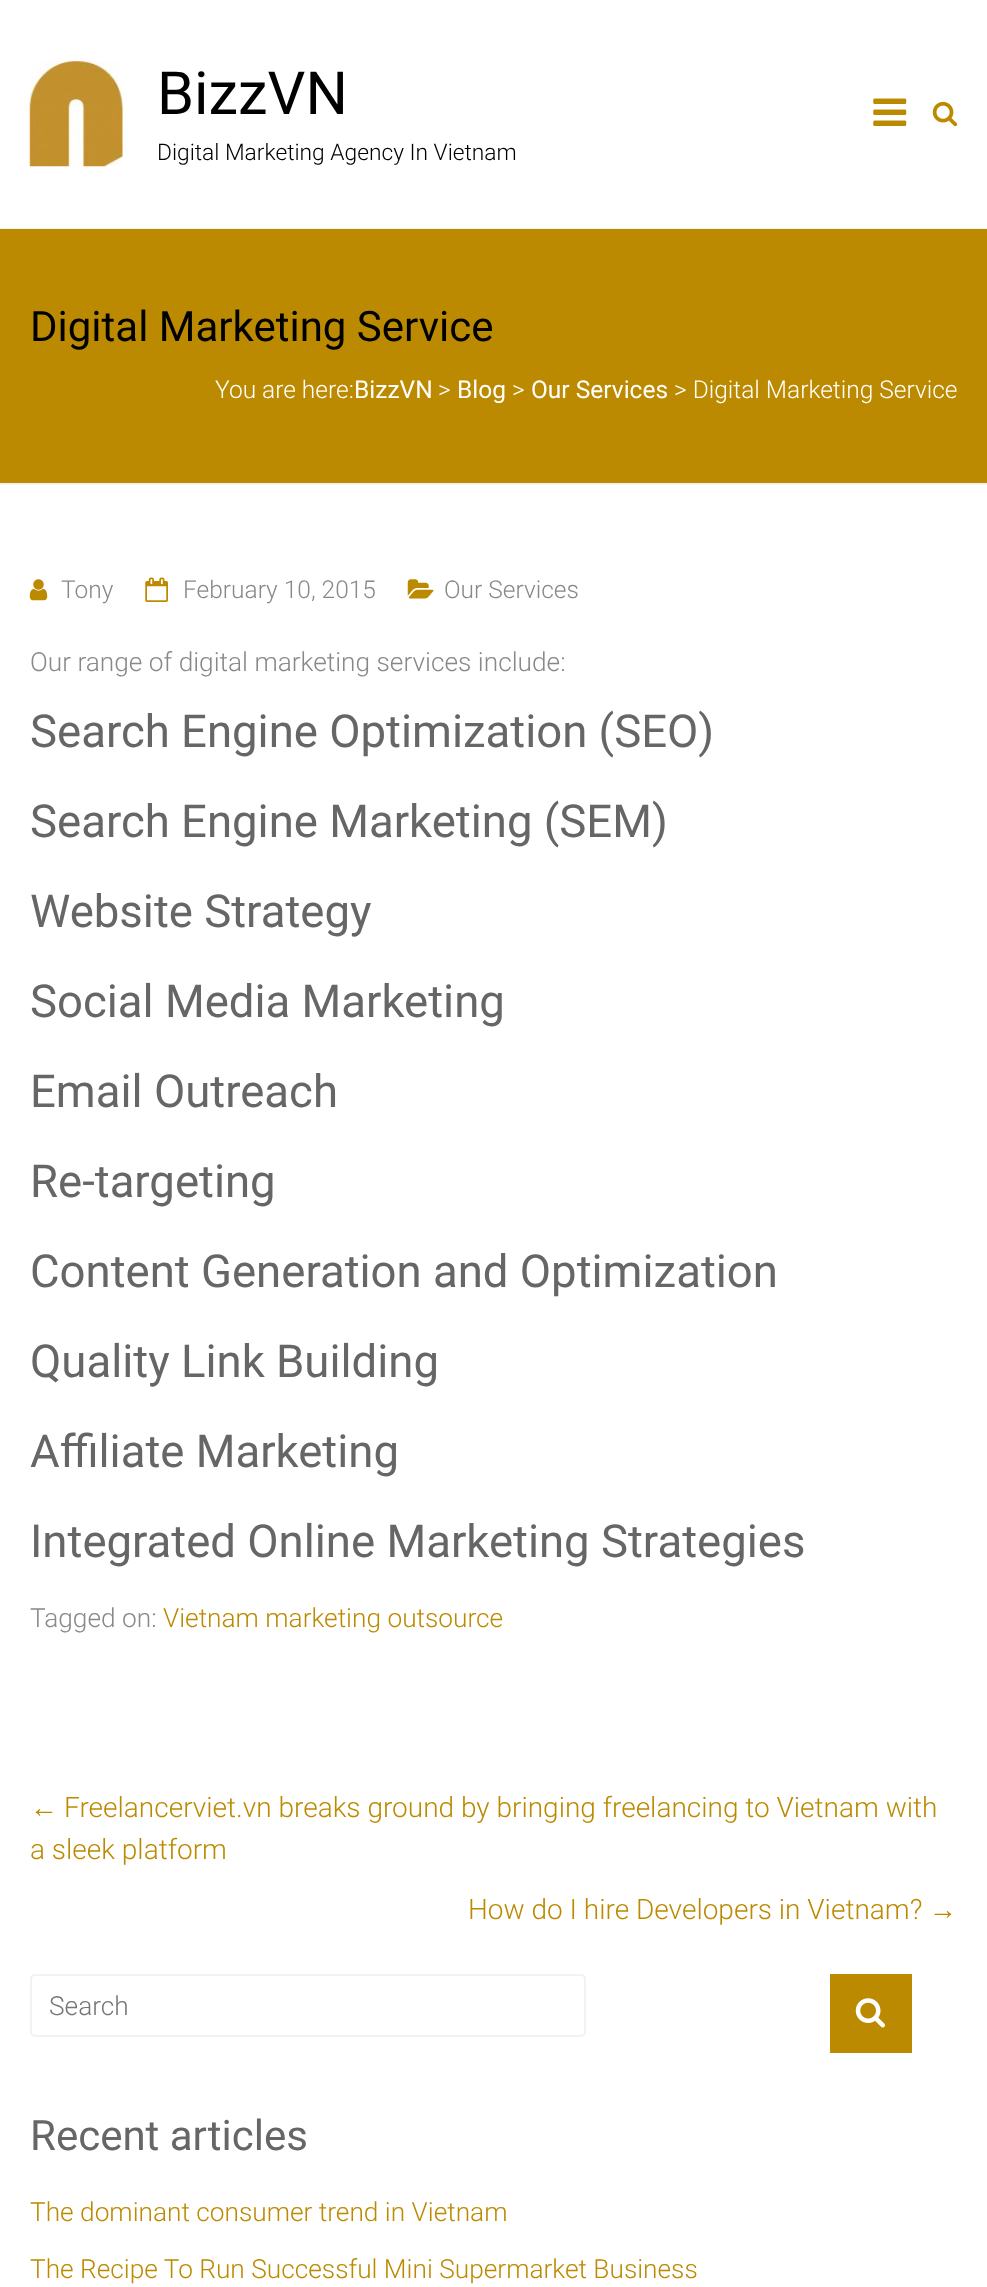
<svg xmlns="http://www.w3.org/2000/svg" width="987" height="2287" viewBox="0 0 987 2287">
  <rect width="100%" height="100%" fill="rgb(255,255,255)"/>
  <rect x="0" y="228" width="987" height="1" fill="rgb(242,242,242)"/>
  <image x="29" y="61" width="94" height="106" href="pic1.png"/>
  <text x="157" y="114" font-family="Roboto" font-size="59.5" fill="rgb(0,0,0)">BizzVN</text>
  <text x="157" y="160" font-family="Roboto" font-size="22.75" font-weight="300" fill="rgb(0,0,0)">Digital Marketing Agency In Vietnam</text>
  <image x="873" y="98" width="34" height="28" href="pic2.png"/>
  <image x="932" y="101" width="26" height="26" href="pic3.png"/>
  <rect x="0" y="229" width="987" height="254" fill="rgb(188,138,0)"/>
  <rect x="0" y="483" width="987" height="2" fill="rgb(242,242,242)"/>
  <text x="30" y="341" font-family="Roboto" font-size="42" fill="rgb(0,0,0)">Digital Marketing Service</text>
  <text x="215" y="398" font-family="Roboto" font-size="24.5" font-weight="300" fill="rgb(255,255,255)">You are here:</text>
  <text x="354" y="398" font-family="Roboto" font-size="24.5" fill="rgb(255,255,255)">BizzVN</text>
  <text x="438" y="398" font-family="Roboto" font-size="24.5" font-weight="300" fill="rgb(255,255,255)">&gt;</text>
  <text x="457" y="398" font-family="Roboto" font-size="24.5" fill="rgb(255,255,255)">Blog</text>
  <text x="512" y="398" font-family="Roboto" font-size="24.5" font-weight="300" fill="rgb(255,255,255)">&gt;</text>
  <text x="531" y="398" font-family="Roboto" font-size="24.5" fill="rgb(255,255,255)">Our Services</text>
  <text x="674" y="398" font-family="Roboto" font-size="24.5" font-weight="300" fill="rgb(255,255,255)">&gt; Digital Marketing Service</text>
  <image x="29" y="579" width="19" height="22" href="pic4.png"/>
  <text x="61" y="598" font-family="Roboto" font-size="24.5" font-weight="300" fill="rgb(136,136,136)">Tony</text>
  <image x="145" y="577" width="23" height="25" href="pic5.png"/>
  <text x="183" y="598" font-family="Roboto" font-size="24.5" font-weight="300" fill="rgb(136,136,136)">February 10, 2015</text>
  <image x="407" y="579" width="27" height="20" href="pic6.png"/>
  <text x="444" y="598" font-family="Roboto" font-size="24.5" font-weight="300" fill="rgb(136,136,136)">Our Services</text>
  <text x="30" y="671" font-family="Roboto" font-size="26.25" font-weight="300" fill="rgb(136,136,136)">Our range of digital marketing services include:</text>
  <g font-family="Roboto" font-size="45.5" fill="rgb(102,102,102)">
    <text>
      <tspan x="30" y="747">Search Engine Optimization (SEO)</tspan>
      <tspan x="30" y="837">Search Engine Marketing (SEM)</tspan>
      <tspan x="30" y="927">Website Strategy</tspan>
      <tspan x="30" y="1017">Social Media Marketing</tspan>
      <tspan x="30" y="1107">Email Outreach</tspan>
      <tspan x="30" y="1197">Re-targeting</tspan>
      <tspan x="30" y="1287">Content Generation and Optimization</tspan>
      <tspan x="30" y="1377">Quality Link Building</tspan>
      <tspan x="30" y="1467">Affiliate Marketing</tspan>
      <tspan x="30" y="1557">Integrated Online Marketing Strategies</tspan>
    </text>
  </g>
  <text x="30" y="1627" font-family="Roboto" font-size="26.25" font-weight="300" fill="rgb(136,136,136)">Tagged on:</text>
  <text x="163" y="1627" font-family="Roboto" font-size="26.25" font-weight="300" fill="rgb(188,138,0)">Vietnam marketing outsource</text>
  <text x="30" y="1817" font-family="Liberation Sans" font-size="28" fill="rgb(188,138,0)">←</text>
  <g font-family="Roboto" font-size="28" font-weight="300" fill="rgb(188,138,0)">
    <text x="64" y="1817">Freelancerviet.vn breaks ground by bringing freelancing to Vietnam with</text>
    <text x="30" y="1859">a sleek platform</text>
    <text x="468" y="1919">How do I hire Developers in Vietnam?</text>
  </g>
  <text x="929" y="1919" font-family="Liberation Sans" font-size="28" fill="rgb(188,138,0)">→</text>
  <rect x="31" y="1975" width="554" height="61" rx="4" fill="none" stroke="rgb(242,242,242)" stroke-width="2"/>
  <text x="49" y="2015" font-family="Roboto" font-size="26.25" font-weight="300" fill="rgb(117,117,117)">Search</text>
  <rect x="830" y="1974" width="82" height="79" fill="rgb(188,138,0)"/>
  <image x="855" y="1998" width="30" height="30" href="pic7.png"/>
  <text x="30" y="2150" font-family="Roboto" font-size="42" fill="rgb(102,102,102)">Recent articles</text>
  <g font-family="Roboto" font-size="26.25" font-weight="300" fill="rgb(188,138,0)">
    <text x="30" y="2221">The dominant consumer trend in Vietnam</text>
    <text x="30" y="2278">The Recipe To Run Successful Mini Supermarket Business</text>
  </g>
</svg>
